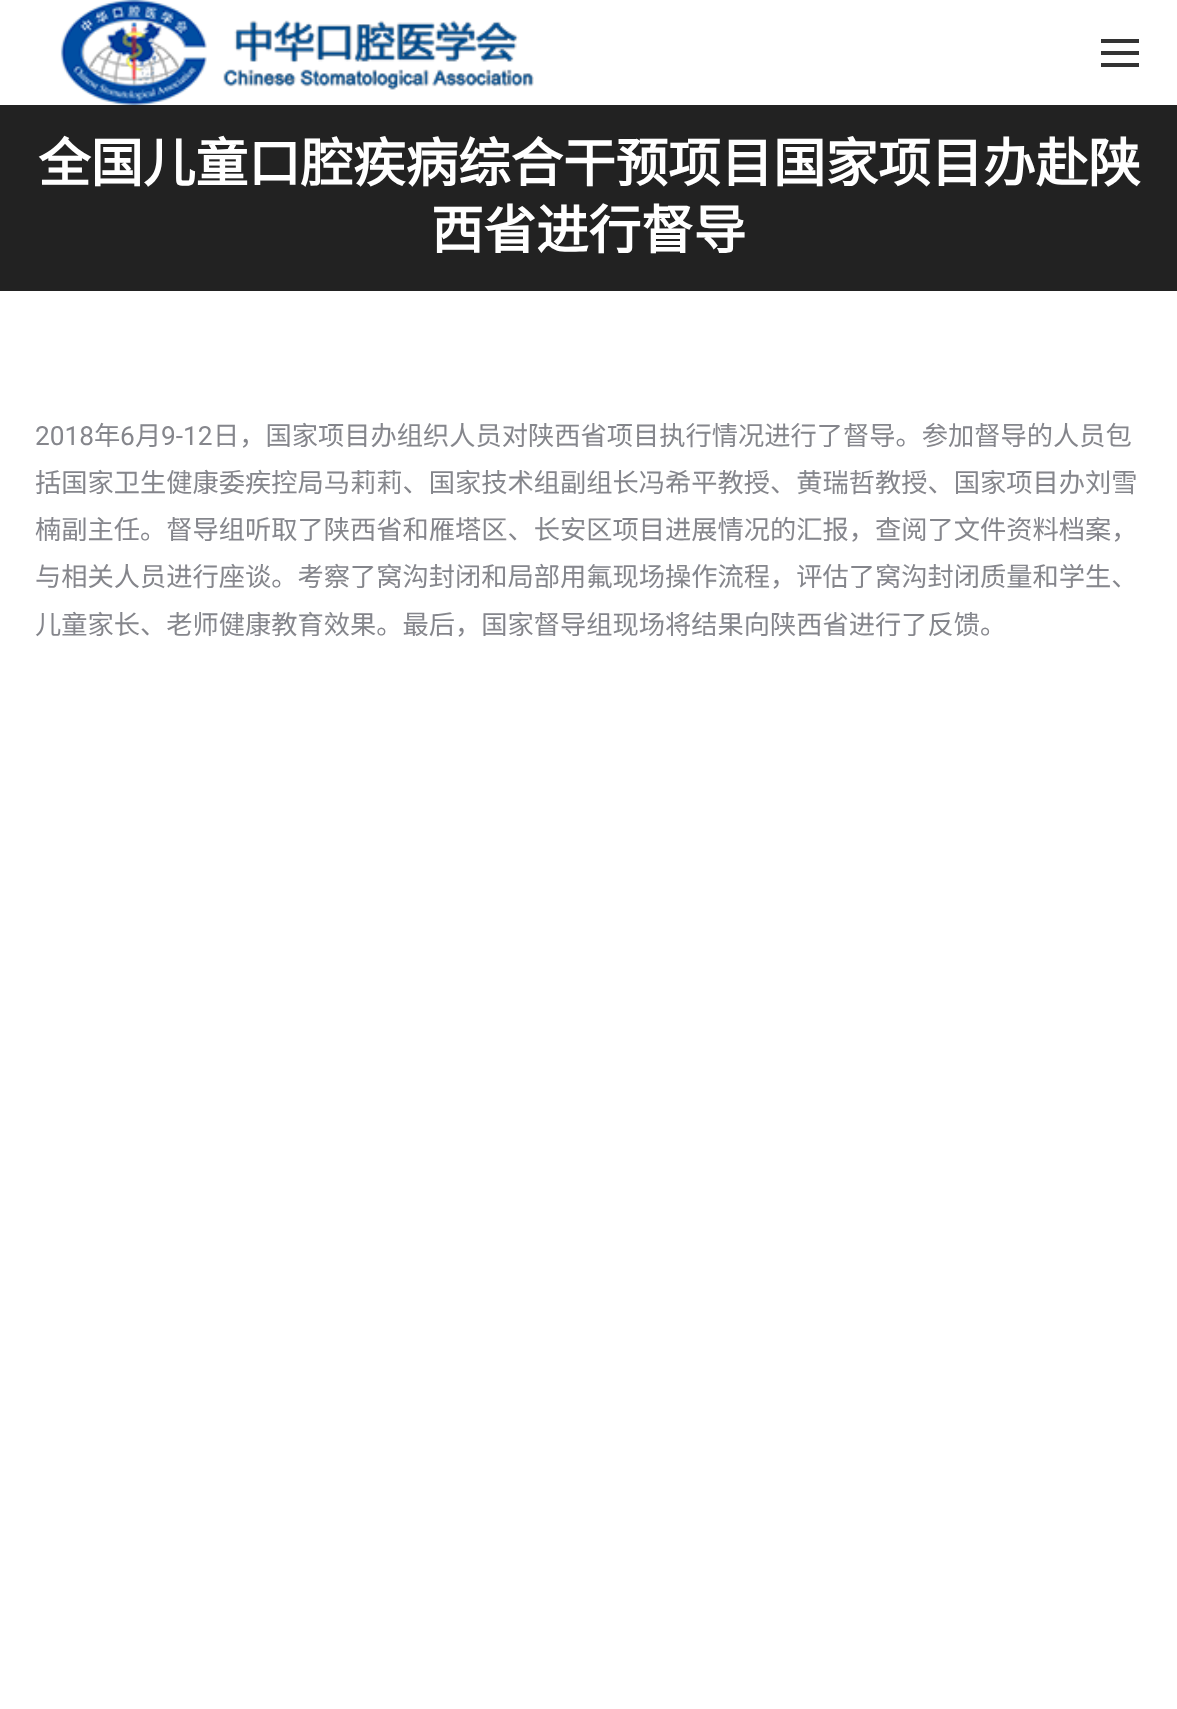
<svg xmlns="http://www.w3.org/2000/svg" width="1177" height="1709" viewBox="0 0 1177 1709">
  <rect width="100%" height="100%" fill="rgb(255,255,255)"/>
  <image x="60" y="0" width="474" height="105" href="pic1.png"/>
  <rect x="1101" y="39" width="38" height="4" fill="rgb(51,51,51)"/>
  <rect x="1101" y="51" width="38" height="4" fill="rgb(51,51,51)"/>
  <rect x="1101" y="63" width="38" height="4" fill="rgb(51,51,51)"/>
  <rect x="0" y="105" width="1177" height="186" fill="rgb(34,34,34)"/>
  <g font-family="Noto Sans CJK SC" font-size="52.5" font-weight="bold" fill="rgb(255,255,255)">
    <text x="38" y="182">全国儿童口腔疾病综合干预项目国家项目办赴陕</text>
    <text x="431" y="249">西省进行督导</text>
  </g>
  <text x="35" y="445" font-family="Roboto" font-size="26.25" fill="rgb(133,134,140)">2018</text>
  <text x="94" y="445" font-family="Noto Sans CJK SC" font-size="26.25" fill="rgb(133,134,140)">年</text>
  <text x="120" y="445" font-family="Roboto" font-size="26.25" fill="rgb(133,134,140)">6</text>
  <text x="135" y="445" font-family="Noto Sans CJK SC" font-size="26.25" fill="rgb(133,134,140)">月</text>
  <text x="161" y="445" font-family="Roboto" font-size="26.25" fill="rgb(133,134,140)">9-12</text>
  <g font-family="Noto Sans CJK SC" font-size="26.25" fill="rgb(133,134,140)">
    <text x="213" y="445">日，国家项目办组织人员对陕西省项目执行情况进行了督导。参加督导的人员包</text>
    <text>
      <tspan x="35" y="492">括国家卫生健康委疾控局马莉莉、国家技术组副组长冯希平教授、黄瑞哲教授、国家项目办刘雪</tspan>
      <tspan x="35" y="539">楠副主任。督导组听取了陕西省和雁塔区、长安区项目进展情况的汇报，查阅了文件资料档案，</tspan>
      <tspan x="35" y="586">与相关人员进行座谈。考察了窝沟封闭和局部用氟现场操作流程，评估了窝沟封闭质量和学生、</tspan>
      <tspan x="35" y="634">儿童家长、老师健康教育效果。最后，国家督导组现场将结果向陕西省进行了反馈。</tspan>
    </text>
  </g>
</svg>
